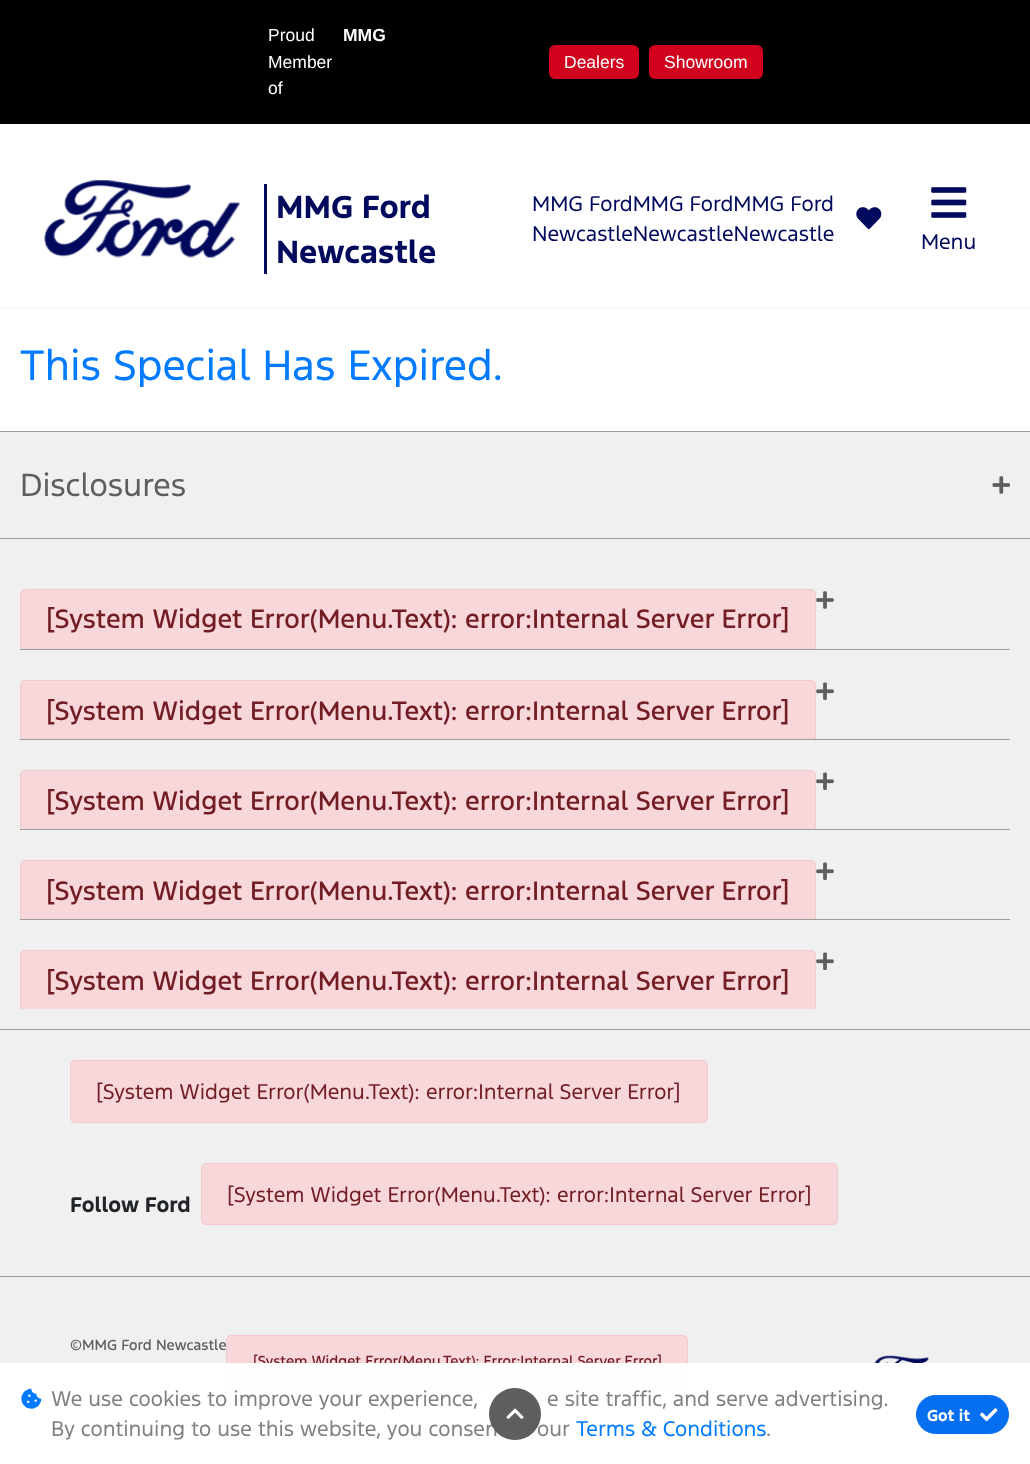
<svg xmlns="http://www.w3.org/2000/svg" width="1030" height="1464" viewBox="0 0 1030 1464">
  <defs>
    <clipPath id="clip1"><rect x="20" y="559" width="990" height="90"/></clipPath>
    <clipPath id="clip2"><rect x="20" y="649" width="990" height="90"/></clipPath>
    <clipPath id="clip3"><rect x="20" y="739" width="990" height="90"/></clipPath>
    <clipPath id="clip4"><rect x="20" y="829" width="990" height="90"/></clipPath>
    <clipPath id="clip5"><rect x="20" y="919" width="990" height="90"/></clipPath>
  </defs>
  <rect width="100%" height="100%" fill="rgb(255,255,255)"/>
  <rect x="0" y="308" width="1030" height="1" fill="rgb(246,246,246)"/>
  <rect x="0" y="0" width="1030" height="124" fill="rgb(0,0,0)"/>
  <g font-family="Liberation Sans" font-size="17.5" fill="rgb(255,255,255)">
    <text>
      <tspan x="268" y="41">Proud</tspan>
      <tspan x="268" y="68">Member</tspan>
      <tspan x="268" y="94">of</tspan>
    </text>
  </g>
  <text x="343" y="41" font-family="Liberation Sans" font-size="17.5" font-weight="bold" fill="rgb(255,255,255)">MMG</text>
  <rect x="549" y="45" width="90" height="34" rx="6" fill="rgb(209,2,30)"/>
  <text x="564" y="68" font-family="Liberation Sans" font-size="17.5" fill="rgb(255,255,255)">Dealers</text>
  <rect x="649" y="45" width="114" height="34" rx="6" fill="rgb(209,2,30)"/>
  <text x="664" y="68" font-family="Liberation Sans" font-size="17.5" fill="rgb(255,255,255)">Showroom</text>
  <image x="44" y="180" width="196" height="78" href="pic1.png"/>
  <rect x="264" y="184" width="3" height="90" fill="rgb(0,9,91)"/>
  <g font-family="'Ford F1'" font-size="30" font-weight="bold" fill="rgb(0,9,91)">
    <text>
      <tspan x="276" y="218">MMG Ford</tspan>
      <tspan x="276" y="263">Newcastle</tspan>
    </text>
  </g>
  <g font-family="'Ford F1'" font-size="20" fill="rgb(0,9,91)">
    <text>
      <tspan x="532" y="211">MMG FordMMG FordMMG Ford</tspan>
      <tspan x="532" y="241">NewcastleNewcastleNewcastle</tspan>
    </text>
  </g>
  <image x="856" y="207" width="26" height="22" href="pic2.png"/>
  <image x="931" y="187" width="36" height="31" href="pic3.png"/>
  <text x="921" y="249" font-family="'Ford F1'" font-size="20" fill="rgb(0,9,91)">Menu</text>
  <text x="20" y="380" font-family="'Ford F1'" font-size="40" fill="rgb(0,123,255)">This Special Has Expired.</text>
  <rect x="0" y="432" width="1030" height="931" fill="rgb(240,240,240)"/>
  <rect x="0" y="431" width="1030" height="1" fill="rgb(156,156,156)"/>
  <rect x="0" y="538" width="1030" height="1" fill="rgb(156,156,156)"/>
  <text x="20" y="496" font-family="'Ford F1'" font-size="30" fill="rgb(94,94,94)">Disclosures</text>
  <image x="992" y="476" width="18" height="18" href="pic4.png"/>
  <rect x="0" y="1029" width="1030" height="1" fill="rgb(156,156,156)"/>
  <image x="816" y="591" width="18" height="18" href="pic5.png"/>
  <rect x="20" y="649" width="990" height="1" fill="rgb(156,156,156)"/>
  <g clip-path="url(#clip1)">
    <rect x="20.5" y="589.5" width="795" height="61" rx="4.5" fill="rgb(248,215,218)" stroke="rgb(245,198,203)"/>
  </g>
  <text x="46" y="628" font-family="'Ford F1'" font-size="25" font-weight="500" fill="rgb(114,28,36)">[System Widget Error(Menu.Text): error:Internal Server Error]</text>
  <image x="816" y="682" width="18" height="18" href="pic6.png"/>
  <rect x="20" y="739" width="990" height="1" fill="rgb(156,156,156)"/>
  <g clip-path="url(#clip2)">
    <rect x="20.5" y="680.5" width="795" height="62" rx="4.5" fill="rgb(248,215,218)" stroke="rgb(245,198,203)"/>
  </g>
  <text x="46" y="720" font-family="'Ford F1'" font-size="25" font-weight="500" fill="rgb(114,28,36)">[System Widget Error(Menu.Text): error:Internal Server Error]</text>
  <image x="816" y="772" width="18" height="18" href="pic6.png"/>
  <rect x="20" y="829" width="990" height="1" fill="rgb(156,156,156)"/>
  <g clip-path="url(#clip3)">
    <rect x="20.5" y="770.5" width="795" height="62" rx="4.5" fill="rgb(248,215,218)" stroke="rgb(245,198,203)"/>
  </g>
  <text x="46" y="810" font-family="'Ford F1'" font-size="25" font-weight="500" fill="rgb(114,28,36)">[System Widget Error(Menu.Text): error:Internal Server Error]</text>
  <image x="816" y="862" width="18" height="18" href="pic6.png"/>
  <rect x="20" y="919" width="990" height="1" fill="rgb(156,156,156)"/>
  <g clip-path="url(#clip4)">
    <rect x="20.5" y="860.5" width="795" height="62" rx="4.5" fill="rgb(248,215,218)" stroke="rgb(245,198,203)"/>
  </g>
  <text x="46" y="900" font-family="'Ford F1'" font-size="25" font-weight="500" fill="rgb(114,28,36)">[System Widget Error(Menu.Text): error:Internal Server Error]</text>
  <image x="816" y="952" width="18" height="18" href="pic6.png"/>
  <g clip-path="url(#clip5)">
    <rect x="20.5" y="950.5" width="795" height="62" rx="4.5" fill="rgb(248,215,218)" stroke="rgb(245,198,203)"/>
  </g>
  <text x="46" y="990" font-family="'Ford F1'" font-size="25" font-weight="500" fill="rgb(114,28,36)">[System Widget Error(Menu.Text): error:Internal Server Error]</text>
  <rect x="70.5" y="1060.5" width="637" height="62" rx="4.5" fill="rgb(248,215,218)" stroke="rgb(245,198,203)"/>
  <text x="96" y="1099" font-family="'Ford F1'" font-size="20" fill="rgb(114,28,36)">[System Widget Error(Menu.Text): error:Internal Server Error]</text>
  <text x="70" y="1212" font-family="'Ford F1'" font-size="20" font-weight="bold" fill="rgb(33,37,41)">Follow Ford</text>
  <rect x="201.5" y="1163.5" width="636" height="61" rx="4.5" fill="rgb(248,215,218)" stroke="rgb(245,198,203)"/>
  <text x="227" y="1202" font-family="'Ford F1'" font-size="20" fill="rgb(114,28,36)">[System Widget Error(Menu.Text): error:Internal Server Error]</text>
  <rect x="0" y="1276" width="1030" height="1" fill="rgb(156,156,156)"/>
  <text x="70" y="1350" font-family="'Ford F1'" font-size="13.75" font-weight="500" fill="rgb(94,94,94)">©MMG Ford Newcastle</text>
  <rect x="226.5" y="1335.5" width="461" height="53" rx="4.5" fill="rgb(248,215,218)" stroke="rgb(245,198,203)"/>
  <text x="253" y="1366" font-family="'Ford F1'" font-size="13.75" font-weight="500" fill="rgb(114,28,36)">[System Widget Error(Menu.Text): Error:Internal Server Error]</text>
  <image x="874" y="1355" width="55" height="8" href="pic7.png"/>
  <rect x="226" y="1363" width="462" height="26" fill="rgb(254,254,254)"/>
  <g font-family="'Ford F1'" font-size="20" fill="rgb(129,129,130)">
    <text x="51" y="1436">By continuing to use this website, you consen</text>
    <text x="537" y="1436">our</text>
  </g>
  <circle cx="515" cy="1414" r="26" fill="rgb(94,94,94)"/>
  <image x="506" y="1408" width="18" height="11" href="pic8.png"/>
  <image x="21" y="1388" width="21" height="21" href="pic9.png"/>
  <g font-family="'Ford F1'" font-size="20" fill="rgb(129,129,130)">
    <text x="51" y="1406">We use cookies to improve your experience,</text>
    <text x="547" y="1406">e site traffic, and serve advertising.</text>
  </g>
  <text x="576" y="1436" font-family="'Ford F1'" font-size="20" fill="rgb(0,123,255)">Terms &amp; Conditions</text>
  <text x="766" y="1436" font-family="'Ford F1'" font-size="20" fill="rgb(129,129,130)">.</text>
  <rect x="916.5" y="1395.5" width="92" height="38" rx="19" fill="rgb(6,111,239)" stroke="rgb(6,111,239)"/>
  <text x="927" y="1421" font-family="'Ford F1'" font-size="15" font-weight="bold" fill="rgb(255,255,255)">Got it</text>
  <image x="980" y="1408" width="18" height="14" href="pic10.png"/>
</svg>
